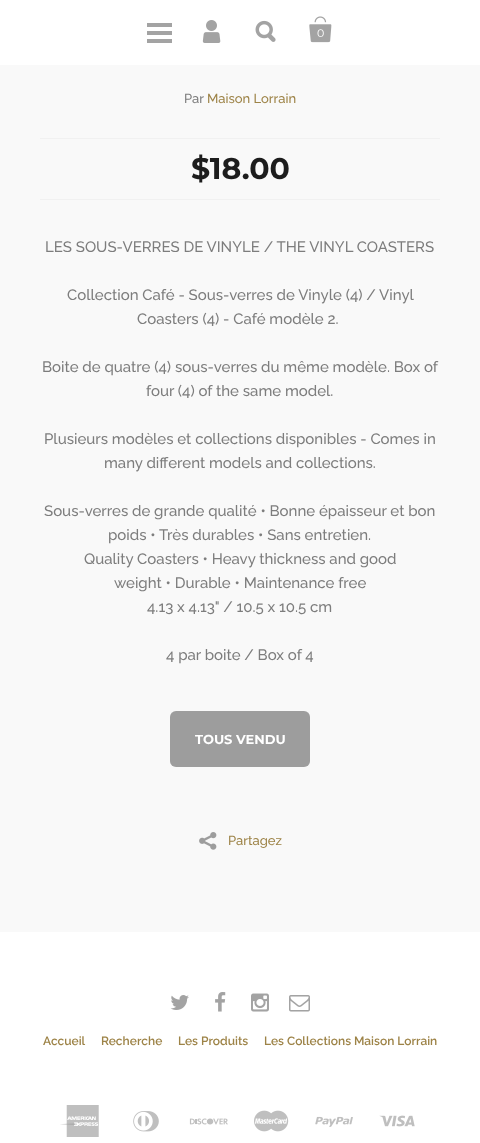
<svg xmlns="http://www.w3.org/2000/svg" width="480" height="1143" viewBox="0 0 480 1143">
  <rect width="100%" height="100%" fill="rgb(249,249,249)"/>
  <rect x="0" y="0" width="480" height="65" fill="rgb(255,255,255)"/>
  <rect x="147" y="23" width="25" height="4" fill="rgb(163,163,163)"/>
  <rect x="147" y="31" width="25" height="4" fill="rgb(163,163,163)"/>
  <rect x="147" y="39" width="25" height="4" fill="rgb(163,163,163)"/>
  <image x="202" y="20" width="19" height="23" href="pic1.png"/>
  <image x="255" y="20" width="21" height="22" href="pic2.png"/>
  <image x="309" y="16" width="23" height="27" href="pic3.png"/>
  <text x="317" y="37" font-family="Montserrat" font-size="11" fill="rgb(255,255,255)">0</text>
  <text x="184" y="103" font-family="Raleway" font-size="13" font-weight="500" fill="rgb(125,125,125)">Par</text>
  <text x="207" y="103" font-family="Raleway" font-size="13" font-weight="500" fill="rgb(157,131,71)">Maison Lorrain</text>
  <rect x="40" y="138" width="400" height="1" fill="rgb(241,241,241)"/>
  <rect x="40" y="199" width="400" height="1" fill="rgb(241,241,241)"/>
  <text x="191" y="179" font-family="Montserrat" font-size="30" font-weight="bold" fill="rgb(29,29,29)">$18.00</text>
  <g font-family="Raleway" font-size="15" font-weight="500" fill="rgb(125,125,125)">
    <text x="45" y="252">LES SOUS-VERRES DE VINYLE / THE VINYL COASTERS</text>
    <text x="67" y="300">Collection Café - Sous-verres de Vinyle (4) / Vinyl</text>
    <text x="137" y="324">Coasters (4) - Café modèle 2.</text>
    <text x="42" y="372">Boite de quatre (4) sous-verres du même modèle. Box of</text>
    <text x="146" y="396">four (4) of the same model.</text>
    <text x="44" y="444">Plusieurs modèles et collections disponibles - Comes in</text>
    <text x="104" y="468">many different models and collections.</text>
    <text x="44" y="516">Sous-verres de grande qualité • Bonne épaisseur et bon</text>
    <text x="108" y="540">poids • Très durables • Sans entretien.</text>
    <text x="84" y="564">Quality Coasters • Heavy thickness and good</text>
    <text x="114" y="588">weight • Durable • Maintenance free</text>
    <text x="147" y="612">4.13 x 4.13" / 10.5 x 10.5 cm</text>
    <text x="166" y="660">4 par boite / Box of 4</text>
  </g>
  <rect x="170" y="711" width="140" height="56" rx="6" fill="rgb(157,157,157)"/>
  <text x="195" y="744" font-family="Montserrat" font-size="13" font-weight="bold" fill="rgb(255,255,255)">TOUS VENDU</text>
  <image x="199" y="832" width="18" height="18" href="pic4.png"/>
  <text x="228" y="845" font-family="Raleway" font-size="13" font-weight="500" fill="rgb(157,131,71)">Partagez</text>
  <rect x="0" y="932" width="480" height="211" fill="rgb(255,255,255)"/>
  <image x="170" y="995" width="19" height="15" href="pic5.png"/>
  <image x="215" y="992" width="11" height="20" href="pic6.png"/>
  <image x="251" y="993" width="18" height="19" href="pic7.png"/>
  <image x="289" y="995" width="21" height="17" href="pic8.png"/>
  <g font-family="Raleway" font-size="12" font-weight="600" fill="rgb(157,131,71)">
    <text x="43" y="1045">Accueil</text>
    <text x="101" y="1045">Recherche</text>
    <text x="178" y="1045">Les Produits</text>
    <text x="264" y="1045">Les Collections Maison Lorrain</text>
  </g>
  <image x="60" y="1105" width="39" height="32" href="pic9.png"/>
  <image x="133" y="1111" width="26" height="21" href="pic10.png"/>
  <image x="189" y="1118" width="39" height="7" href="pic11.png"/>
  <image x="254" y="1110" width="35" height="22" href="pic12.png"/>
  <image x="315" y="1116" width="38" height="11" href="pic13.png"/>
  <image x="379" y="1115" width="36" height="12" href="pic14.png"/>
</svg>
